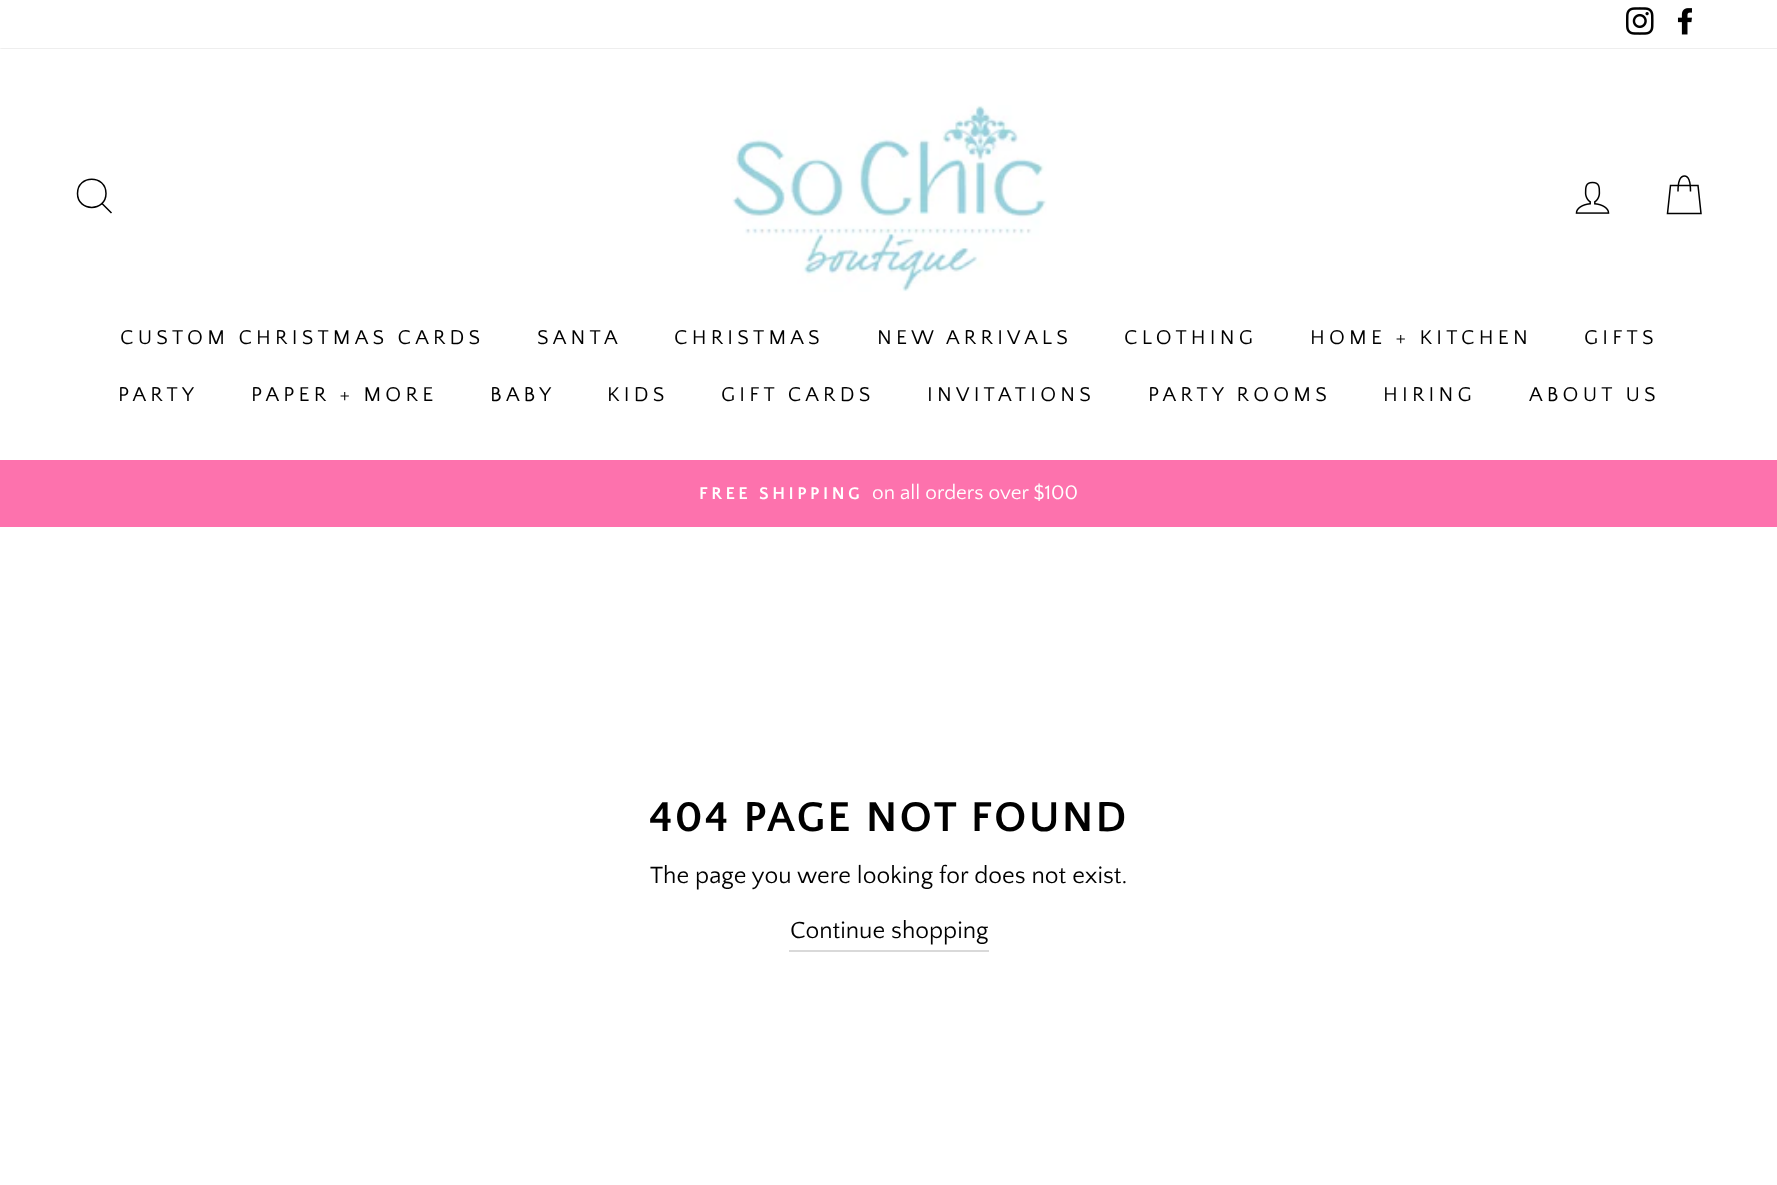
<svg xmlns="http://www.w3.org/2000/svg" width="1777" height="1185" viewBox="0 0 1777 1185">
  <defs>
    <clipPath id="clip1"><rect x="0" y="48" width="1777" height="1"/></clipPath>
  </defs>
  <rect width="100%" height="100%" fill="rgb(255,255,255)"/>
  <image x="1626" y="7" width="28" height="28" href="pic1.png"/>
  <image x="1677" y="8" width="15" height="27" href="pic2.png"/>
  <g clip-path="url(#clip1)">
    <rect x="0" y="49" width="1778" height="411" fill="rgba(0,0,0,0.2)" filter="blur(1px)"/>
  </g>
  <path d="M106 193.5C106 212 77.5 212 77.5 193.5C77.5 174.5 106 174.5 106 193.5ZM111.5 213L102 203.5" fill="none" stroke="rgb(0,0,0)" stroke-width="1.5"/>
  <image x="731" y="105" width="316" height="187" href="pic3.png"/>
  <image x="1575" y="181" width="35" height="33" href="pic4.png"/>
  <path d="M1678 191.5C1678 179.5 1681 176 1684.5 176C1687.5 176 1690.5 179.5 1690.5 191.5M1670.5 185.5H1698L1701 213.5H1667.5Z" fill="none" stroke="rgb(0,0,0)" stroke-width="1.5"/>
  <g font-family="Quattrocento Sans" font-size="21" letter-spacing="4.2" fill="rgb(0,0,0)">
    <text x="120" y="344">CUSTOM CHRISTMAS CARDS</text>
    <text x="537" y="344">SANTA</text>
    <text x="674" y="344">CHRISTMAS</text>
    <text x="877" y="344">NEW ARRIVALS</text>
    <text x="1124" y="344">CLOTHING</text>
    <text x="1310" y="344">HOME + KITCHEN</text>
    <text x="1584" y="344">GIFTS</text>
    <text x="118" y="401">PARTY</text>
    <text x="251" y="401">PAPER + MORE</text>
    <text x="490" y="401">BABY</text>
    <text x="607" y="401">KIDS</text>
    <text x="721" y="401">GIFT CARDS</text>
    <text x="927" y="401">INVITATIONS</text>
    <text x="1148" y="401">PARTY ROOMS</text>
    <text x="1383" y="401">HIRING</text>
    <text x="1529" y="401">ABOUT US</text>
  </g>
  <rect x="0" y="460" width="1777" height="67" fill="rgb(253,114,173)"/>
  <text x="699" y="499" font-family="Quattrocento Sans" font-size="17.75" font-weight="bold" letter-spacing="3.5" fill="rgb(255,255,255)">FREE SHIPPING</text>
  <text x="872" y="499" font-family="Quattrocento Sans" font-size="20.75" fill="rgb(255,255,255)">on all orders over $100</text>
  <text x="649" y="831" font-family="Quattrocento Sans" font-size="43.75" font-weight="bold" letter-spacing="2.2" fill="rgb(0,0,0)">404 PAGE NOT FOUND</text>
  <text x="650" y="883" font-family="Quattrocento Sans" font-size="24.5" fill="rgb(0,0,0)">The page you were looking for does not exist.</text>
  <rect x="789" y="950" width="200" height="2" fill="rgb(217,217,217)"/>
  <text x="790" y="938" font-family="Quattrocento Sans" font-size="24.5" fill="rgb(0,0,0)">Continue shopping</text>
</svg>
